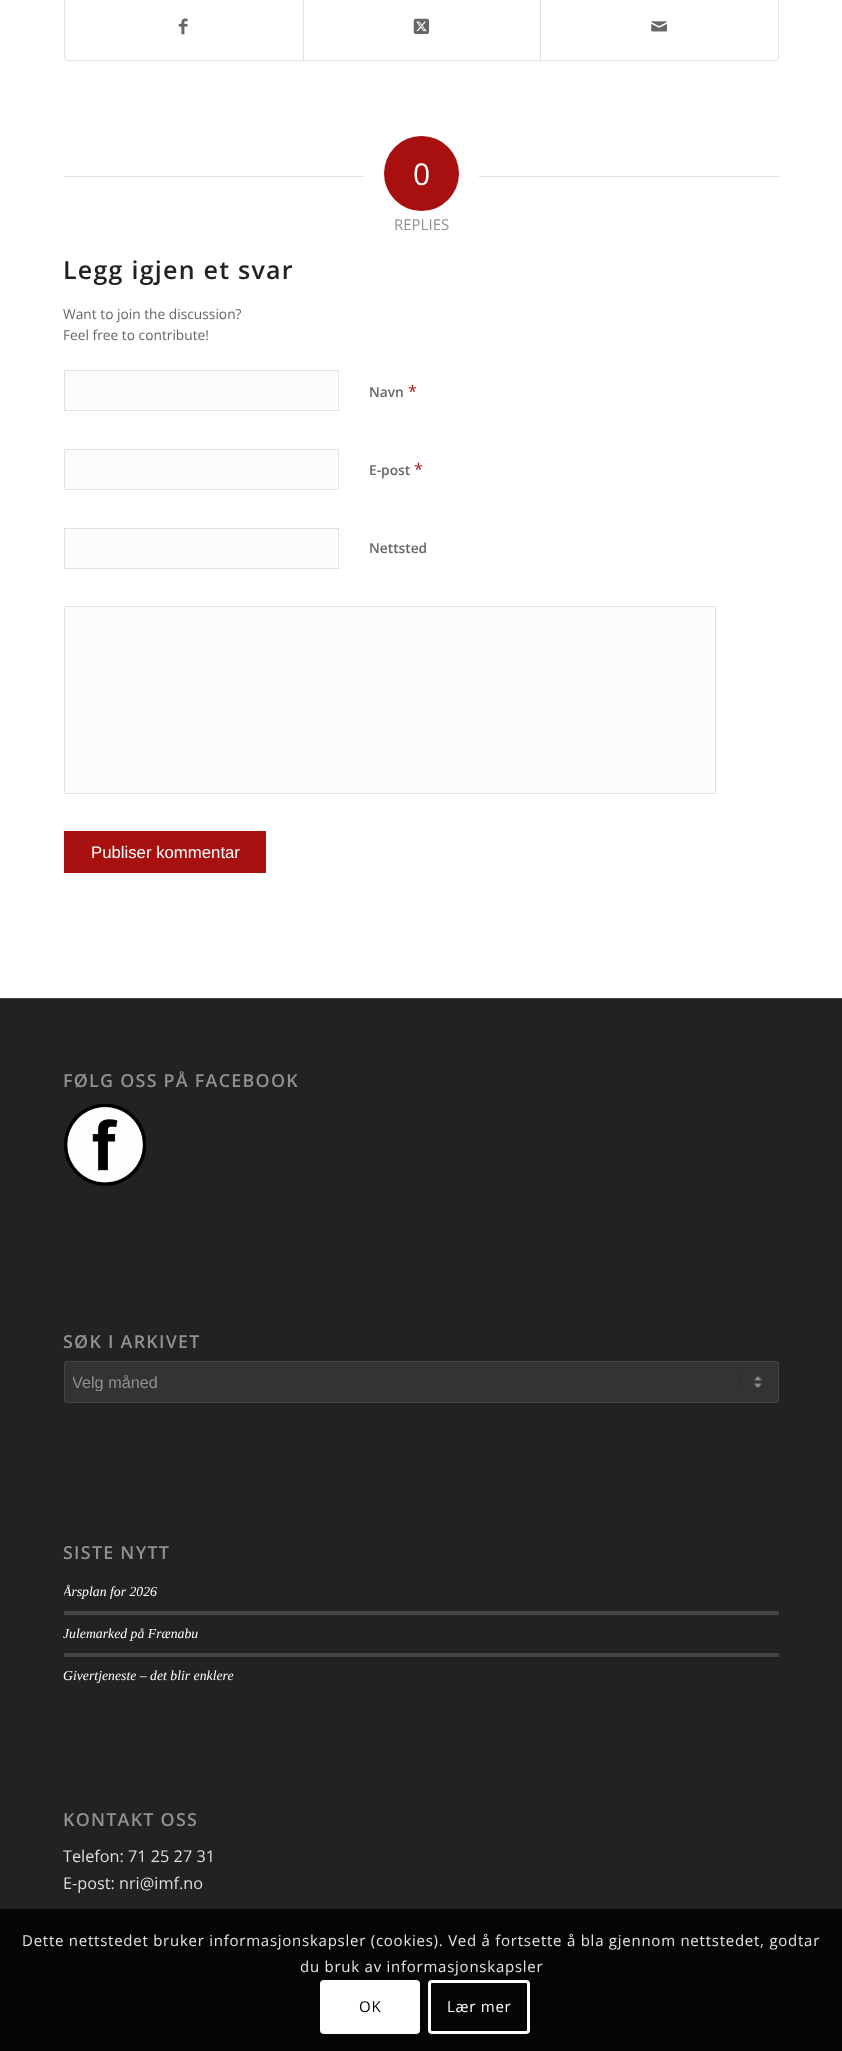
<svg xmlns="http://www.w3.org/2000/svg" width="842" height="2051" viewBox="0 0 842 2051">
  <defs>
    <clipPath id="clip1"><rect x="73" y="1373" width="697" height="18"/></clipPath>
    <clipPath id="clip2"><rect x="64" y="1528" width="715" height="167"/></clipPath>
  </defs>
  <rect width="100%" height="100%" fill="rgb(255,255,255)"/>
  <rect x="64.5" y="-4.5" width="714" height="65" rx="3.5" fill="none" stroke="rgb(225,225,225)"/>
  <image x="178" y="18" width="10" height="17" href="pic1.png"/>
  <rect x="303" y="0" width="1" height="60" fill="rgb(225,225,225)"/>
  <image x="413" y="18" width="17" height="17" href="pic2.png"/>
  <rect x="540" y="0" width="1" height="60" fill="rgb(225,225,225)"/>
  <image x="651" y="21" width="16" height="11" href="pic3.png"/>
  <rect x="64" y="176" width="300" height="1" fill="rgb(225,225,225)"/>
  <circle cx="421.5" cy="173.5" r="37.5" fill="rgb(168,16,16)"/>
  <text x="413" y="185" font-family="Open Sans" font-size="30" fill="rgb(255,255,255)">0</text>
  <rect x="479" y="176" width="300" height="1" fill="rgb(225,225,225)"/>
  <text x="394" y="230" font-family="Open Sans" font-size="15" fill="rgb(145,145,145)">REPLIES</text>
  <text x="63" y="279" font-family="Open Sans" font-size="25" font-weight="600" letter-spacing="1.25" fill="rgb(34,34,34)">Legg igjen et svar</text>
  <g font-family="Open Sans" font-size="13.75" fill="rgb(102,102,102)">
    <text>
      <tspan x="63" y="319">Want to join the discussion?</tspan>
      <tspan x="63" y="340">Feel free to contribute!</tspan>
    </text>
  </g>
  <rect x="64.5" y="370.5" width="274" height="40" fill="rgb(252,252,252)" stroke="rgb(225,225,225)"/>
  <text x="369" y="397" font-family="Open Sans" font-size="13.75" font-weight="600" fill="rgb(102,102,102)">Navn</text>
  <text x="408" y="397" font-family="Open Sans" font-size="16.25" fill="rgb(168,16,16)">*</text>
  <rect x="64.5" y="449.5" width="274" height="40" fill="rgb(252,252,252)" stroke="rgb(225,225,225)"/>
  <text x="369" y="475" font-family="Open Sans" font-size="13.75" font-weight="600" fill="rgb(102,102,102)">E-post</text>
  <text x="414" y="475" font-family="Open Sans" font-size="16.25" fill="rgb(168,16,16)">*</text>
  <rect x="64.5" y="528.5" width="274" height="40" fill="rgb(252,252,252)" stroke="rgb(225,225,225)"/>
  <text x="369" y="553" font-family="Open Sans" font-size="13.75" font-weight="600" fill="rgb(102,102,102)">Nettsted</text>
  <rect x="64.5" y="606.5" width="651" height="187" fill="rgb(252,252,252)" stroke="rgb(225,225,225)"/>
  <rect x="64" y="831" width="202" height="42" fill="rgb(168,16,16)"/>
  <text x="91" y="858" font-family="Liberation Sans" font-size="16.75" fill="rgb(255,255,255)">Publiser kommentar</text>
  <rect x="0" y="999" width="842" height="910" fill="rgb(34,34,34)"/>
  <rect x="0" y="998" width="842" height="1" fill="rgb(68,68,68)"/>
  <text x="63" y="1087" font-family="Open Sans" font-size="17.9" font-weight="600" letter-spacing="1.25" fill="rgb(145,145,145)">FØLG OSS PÅ FACEBOOK</text>
  <image x="64" y="1103" width="82" height="83" href="pic4.png"/>
  <text x="63" y="1348" font-family="Open Sans" font-size="17.9" font-weight="600" letter-spacing="1.25" fill="rgb(145,145,145)">SØK I ARKIVET</text>
  <rect x="64" y="1361" width="715" height="42" rx="2.5" fill="rgb(51,51,51)"/>
  <image x="740" y="1374" width="22" height="15" href="pic5.png"/>
  <rect x="64.5" y="1361.5" width="714" height="41" rx="2" fill="none" stroke="rgb(68,68,68)"/>
  <g clip-path="url(#clip1)">
    <text x="72" y="1388" font-family="Liberation Sans" font-size="16.25" fill="rgb(145,145,145)">Velg måned</text>
  </g>
  <text x="63" y="1559" font-family="Open Sans" font-size="17.9" font-weight="600" letter-spacing="1.25" fill="rgb(145,145,145)">SISTE NYTT</text>
  <g clip-path="url(#clip2)">
    <text x="63" y="1596" font-family="Liberation Serif" font-size="13.75" font-style="italic" fill="rgb(255,255,255)">Årsplan for 2026</text>
  </g>
  <rect x="64" y="1611" width="715" height="4" fill="rgb(68,68,68)"/>
  <text x="63" y="1638" font-family="Liberation Serif" font-size="13.75" font-style="italic" fill="rgb(255,255,255)">Julemarked på Frænabu</text>
  <rect x="64" y="1653" width="715" height="4" fill="rgb(68,68,68)"/>
  <text x="63" y="1680" font-family="Liberation Serif" font-size="13.75" font-style="italic" fill="rgb(255,255,255)">Givertjeneste – det blir enklere</text>
  <text x="63" y="1826" font-family="Open Sans" font-size="17.9" font-weight="600" letter-spacing="1.25" fill="rgb(145,145,145)">KONTAKT OSS</text>
  <g font-family="Open Sans" font-size="16.25" fill="rgb(221,221,221)">
    <text>
      <tspan x="63" y="1862">Telefon: 71 25 27 31</tspan>
      <tspan x="63" y="1889">E-post: nri@imf.no</tspan>
    </text>
  </g>
  <rect x="0" y="1909" width="842" height="142" fill="rgb(5,5,5)"/>
  <g font-family="Open Sans" font-size="15" letter-spacing="0.75" fill="rgb(230,230,230)">
    <text x="22" y="1946">Dette nettstedet bruker informasjonskapsler (cookies). Ved å fortsette å bla gjennom nettstedet, godtar</text>
    <text x="300" y="1972">du bruk av informasjonskapsler</text>
  </g>
  <rect x="320" y="1980" width="100" height="54" rx="4" fill="rgb(255,255,255)"/>
  <text x="359" y="2012" font-family="Open Sans" font-size="15" letter-spacing="0.75" fill="rgb(0,0,0)">OK</text>
  <rect x="429.5" y="1981.5" width="99" height="51" rx="2.5" fill="none" stroke="rgb(255,255,255)" stroke-width="3"/>
  <text x="447" y="2012" font-family="Open Sans" font-size="15" letter-spacing="0.75" fill="rgb(255,255,255)">Lær mer</text>
</svg>
